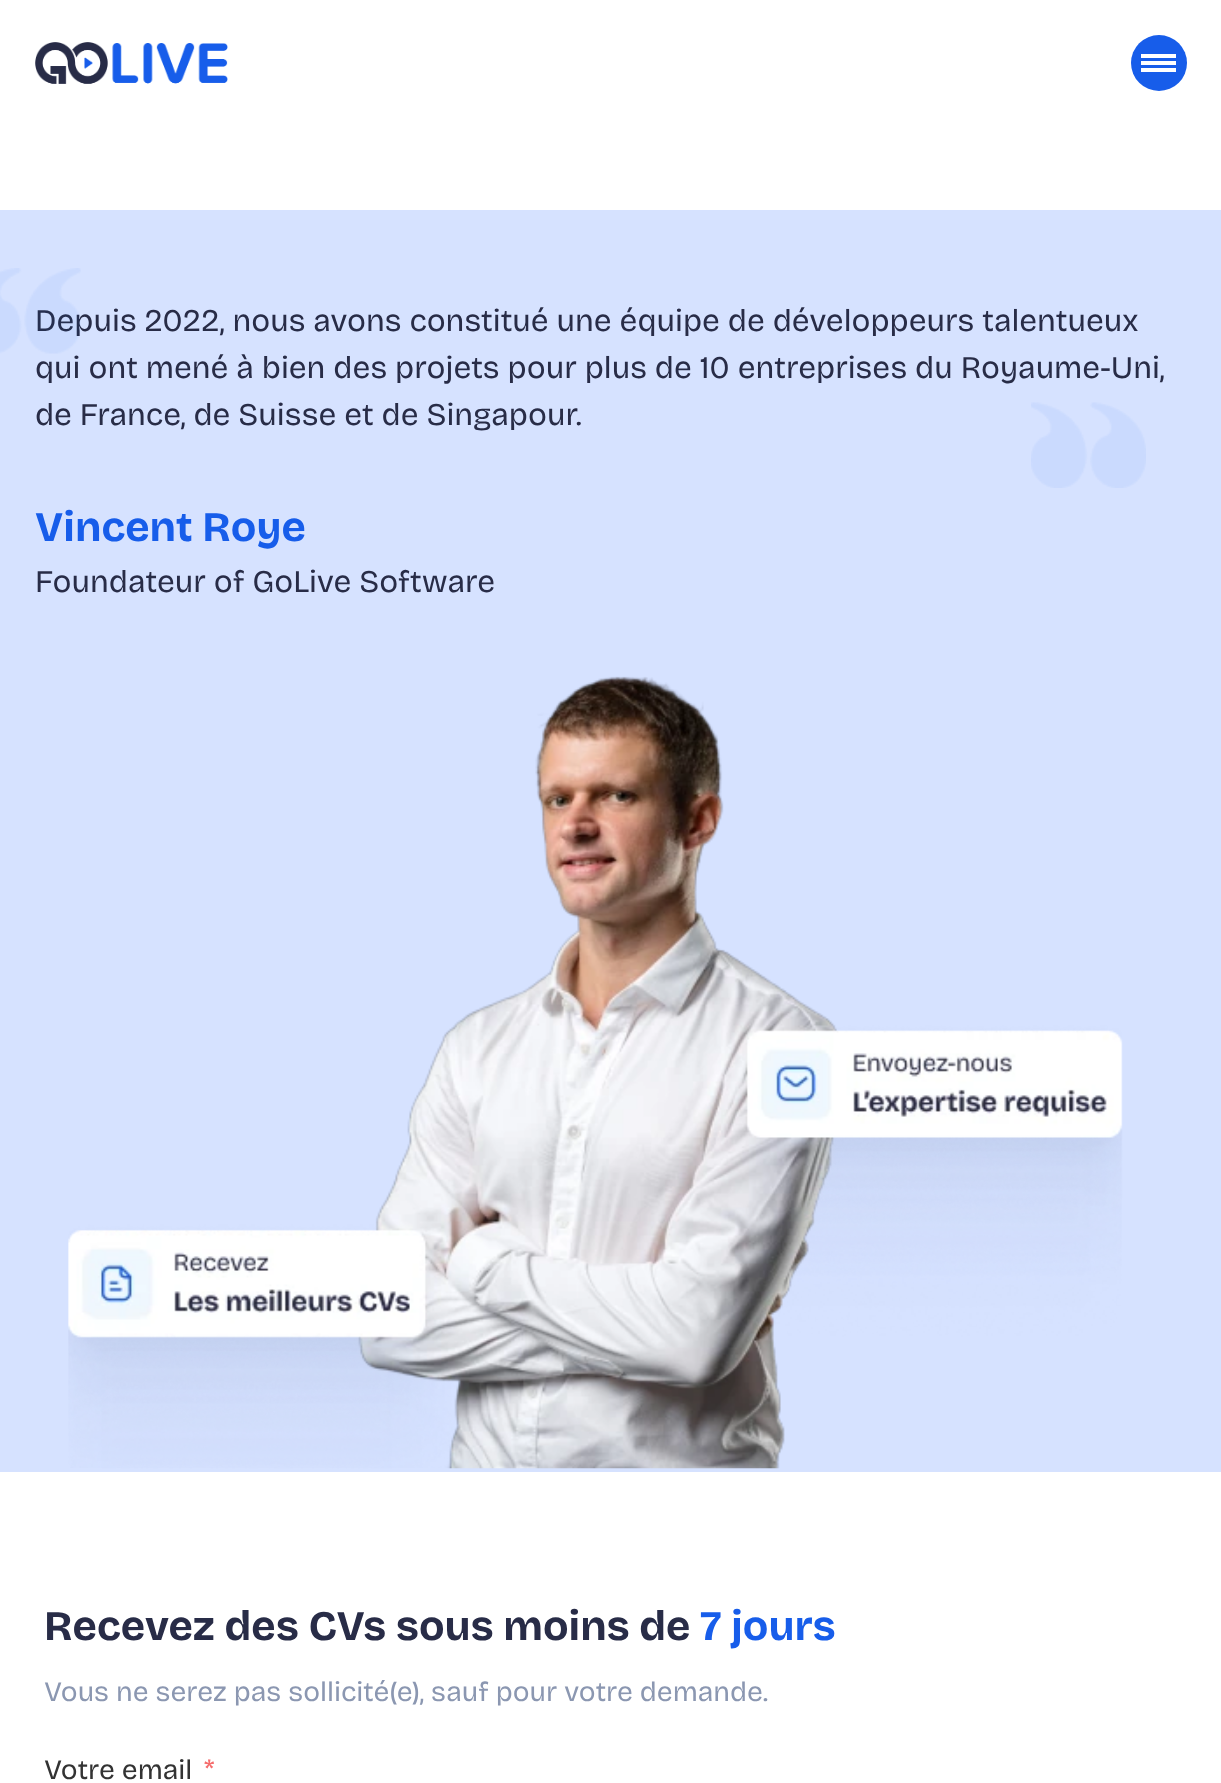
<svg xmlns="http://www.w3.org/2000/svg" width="1221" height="1783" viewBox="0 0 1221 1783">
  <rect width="100%" height="100%" fill="rgb(255,255,255)"/>
  <image x="35" y="42" width="193" height="42" href="pic1.png"/>
  <circle cx="1159" cy="63" r="28" fill="rgb(23,93,234)"/>
  <rect x="1141" y="54" width="35" height="4" fill="rgb(255,255,255)"/>
  <rect x="1141" y="61" width="35" height="4" fill="rgb(255,255,255)"/>
  <rect x="1141" y="68" width="35" height="4" fill="rgb(255,255,255)"/>
  <rect x="0" y="210" width="1221" height="1262" fill="rgb(214,226,255)"/>
  <text x="35" y="331" font-family="Bricolage Grotesque" font-size="31.5" font-weight="800" fill="rgb(40,44,71)">Depuis 2022, nous avons constitué une équipe de développeurs talentueux</text>
  <image x="0" y="268" width="81" height="86" href="pic2.png"/>
  <g font-family="Bricolage Grotesque" font-size="31.5" font-weight="800" fill="rgb(40,44,71)">
    <text>
      <tspan x="35" y="378">qui ont mené à bien des projets pour plus de 10 entreprises du Royaume-Uni,</tspan>
      <tspan x="35" y="425">de France, de Suisse et de Singapour.</tspan>
    </text>
  </g>
  <image x="1031" y="402" width="115" height="86" href="pic3.png"/>
  <text x="35" y="541" font-family="'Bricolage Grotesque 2'" font-size="42" font-weight="800" fill="rgb(23,93,234)">Vincent Roye</text>
  <text x="35" y="592" font-family="Bricolage Grotesque" font-size="31.5" font-weight="800" fill="rgb(40,44,71)">Foundateur of GoLive Software</text>
  <image x="68" y="676" width="1055" height="793" href="pic4.png"/>
  <text x="44" y="1640" font-family="'Bricolage Grotesque 2'" font-size="42" font-weight="800" fill="rgb(40,44,71)">Recevez des CVs sous moins de</text>
  <text x="700" y="1640" font-family="'Bricolage Grotesque 2'" font-size="42" font-weight="800" fill="rgb(23,93,234)">7 jours</text>
  <text x="44" y="1701" font-family="Bricolage Grotesque" font-size="28" font-weight="800" fill="rgb(139,151,177)">Vous ne serez pas sollicité(e), sauf pour votre demande.</text>
  <text x="44" y="1779" font-family="Bricolage Grotesque" font-size="28" font-weight="800" fill="rgb(51,51,51)">Votre email</text>
  <text x="204" y="1779" font-family="Bricolage Grotesque" font-size="28" font-weight="800" fill="rgb(245,108,108)">*</text>
</svg>
